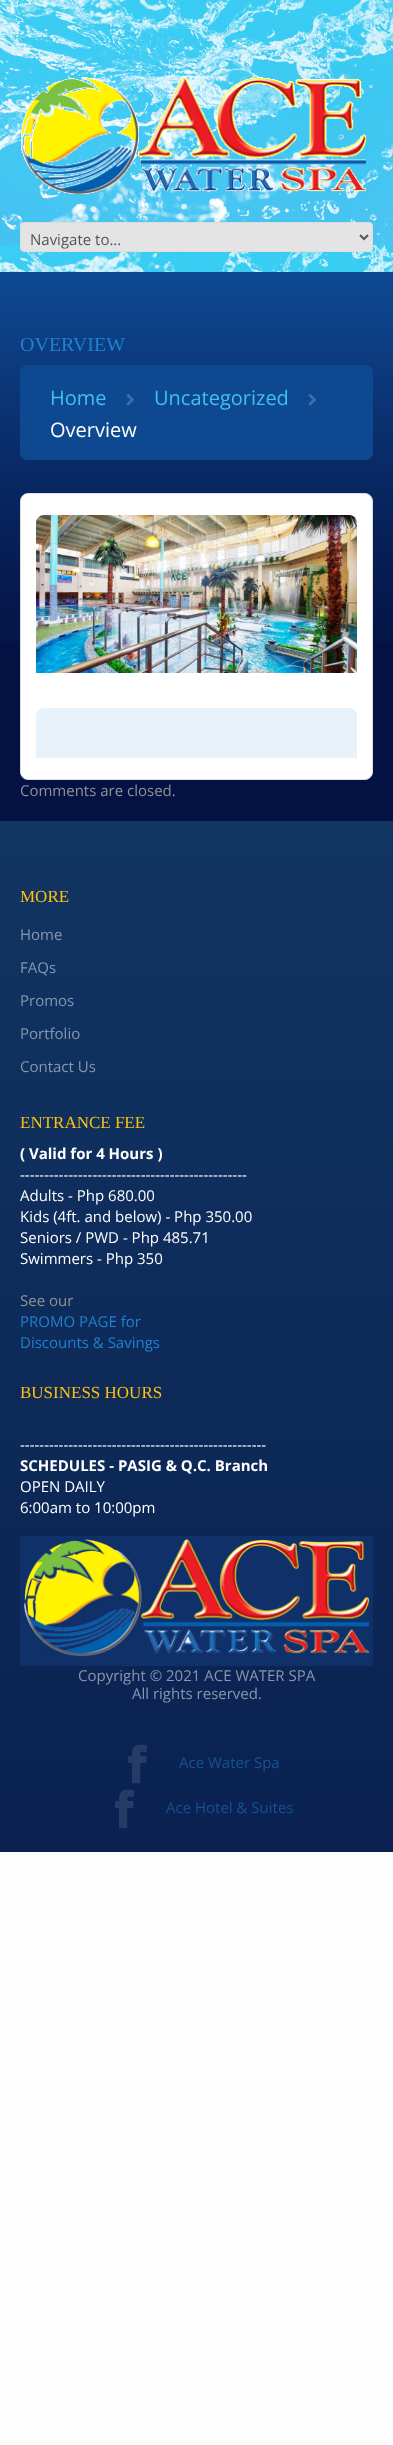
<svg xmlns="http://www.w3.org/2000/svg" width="393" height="2445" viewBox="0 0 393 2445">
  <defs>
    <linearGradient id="g1" gradientUnits="userSpaceOnUse" x1="196" y1="821" x2="197" y2="1852"><stop offset="0" stop-color="rgb(17,53,99)"/><stop offset="1" stop-color="rgb(10,33,81)"/></linearGradient>
  </defs>
  <rect width="100%" height="100%" fill="rgb(253,253,253)"/>
  <image x="0" y="0" width="393" height="272" href="pic1.png"/>
  <image x="21" y="77" width="346" height="118" href="pic2.png"/>
  <rect x="20.5" y="222.5" width="352" height="29" rx="3.5" fill="rgb(228,228,228)" stroke="rgb(221,221,221)"/>
  <path d="M360 235L364 239L368 235" fill="none" stroke="rgb(85,85,85)" stroke-width="2"/>
  <text x="30" y="245" font-family="Open Sans" font-size="15" fill="rgb(85,85,85)">Navigate to...</text>
  <rect x="0" y="644" width="393" height="177" fill="rgb(4,18,67)"/>
  <image x="0" y="272" width="393" height="372" href="pic3.png"/>
  <text x="20" y="351" font-family="Liberation Serif" font-size="20" fill="rgb(31,129,207)">OVERVIEW</text>
  <rect x="20.5" y="365.5" width="352" height="94" rx="6.5" fill="rgb(14,72,145)" stroke="rgb(14,72,145)"/>
  <text x="50" y="405" font-family="Open Sans" font-size="20" fill="rgb(64,192,239)">Home</text>
  <image x="126" y="394" width="8" height="12" href="pic4.png"/>
  <text x="154" y="405" font-family="Open Sans" font-size="20" fill="rgb(64,192,239)">Uncategorized</text>
  <image x="308" y="394" width="8" height="12" href="pic4.png"/>
  <text x="50" y="437" font-family="Open Sans" font-size="20" fill="rgb(255,255,255)">Overview</text>
  <rect x="20.5" y="493.5" width="352" height="286" rx="7.5" fill="rgb(255,255,255)" stroke="rgb(221,221,221)"/>
  <image x="36" y="515" width="321" height="158" href="pic5.png"/>
  <path d="M44 708H349C353.5 708 357 711.5 357 716V758H36V716C36 711.5 39.5 708 44 708Z" fill="rgb(232,242,250)"/>
  <text x="20" y="796" font-family="Open Sans" font-size="15" fill="rgb(147,147,147)">Comments are closed.</text>
  <rect x="0" y="821" width="393" height="1031" fill="url(#g1)"/>
  <text x="20" y="902" font-family="Liberation Serif" font-size="17" fill="rgb(253,192,13)">MORE</text>
  <g font-family="Open Sans" font-size="15" fill="rgb(135,151,174)">
    <text x="20" y="940">Home</text>
    <text x="20" y="973">FAQs</text>
    <text x="20" y="1006">Promos</text>
    <text x="20" y="1039">Portfolio</text>
    <text x="20" y="1072">Contact Us</text>
  </g>
  <text x="20" y="1128" font-family="Liberation Serif" font-size="17" fill="rgb(253,192,13)">ENTRANCE FEE</text>
  <text x="20" y="1159" font-family="Open Sans" font-size="15" font-weight="bold" fill="rgb(255,255,255)">( Valid for 4 Hours )</text>
  <g font-family="Open Sans" font-size="15" fill="rgb(255,255,255)">
    <text>
      <tspan x="20" y="1180">-----------------------------------------------</tspan>
      <tspan x="20" y="1201">Adults - Php 680.00</tspan>
      <tspan x="20" y="1222">Kids (4ft. and below) - Php 350.00</tspan>
      <tspan x="20" y="1243">Seniors / PWD - Php 485.71</tspan>
      <tspan x="20" y="1264">Swimmers - Php 350</tspan>
    </text>
  </g>
  <text x="20" y="1306" font-family="Open Sans" font-size="15" fill="rgb(147,147,147)">See our</text>
  <g font-family="Open Sans" font-size="15" fill="rgb(31,129,207)">
    <text>
      <tspan x="20" y="1327">PROMO PAGE for</tspan>
      <tspan x="20" y="1348">Discounts &amp; Savings</tspan>
    </text>
  </g>
  <text x="20" y="1398" font-family="Liberation Serif" font-size="17" fill="rgb(253,192,13)">BUSINESS HOURS</text>
  <text x="20" y="1450" font-family="Open Sans" font-size="15" fill="rgb(255,255,255)">---------------------------------------------------</text>
  <text x="20" y="1471" font-family="Open Sans" font-size="15" font-weight="bold" fill="rgb(255,255,255)">SCHEDULES - PASIG &amp; Q.C. Branch</text>
  <g font-family="Open Sans" font-size="15" fill="rgb(255,255,255)">
    <text>
      <tspan x="20" y="1492">OPEN DAILY</tspan>
      <tspan x="20" y="1513">6:00am to 10:00pm</tspan>
    </text>
  </g>
  <image x="20" y="1536" width="353" height="130" href="pic6.png"/>
  <g font-family="Open Sans" font-size="15" fill="rgb(135,151,174)">
    <text x="78" y="1681">Copyright © 2021 ACE WATER SPA</text>
    <text x="132" y="1699">All rights reserved.</text>
  </g>
  <image x="128" y="1744" width="20" height="40" href="pic7.png"/>
  <text x="179" y="1768" font-family="Open Sans" font-size="15" fill="rgb(21,82,145)">Ace Water Spa</text>
  <image x="115" y="1789" width="20" height="40" href="pic8.png"/>
  <text x="166" y="1813" font-family="Open Sans" font-size="15" fill="rgb(21,82,145)">Ace Hotel &amp; Suites</text>
</svg>
